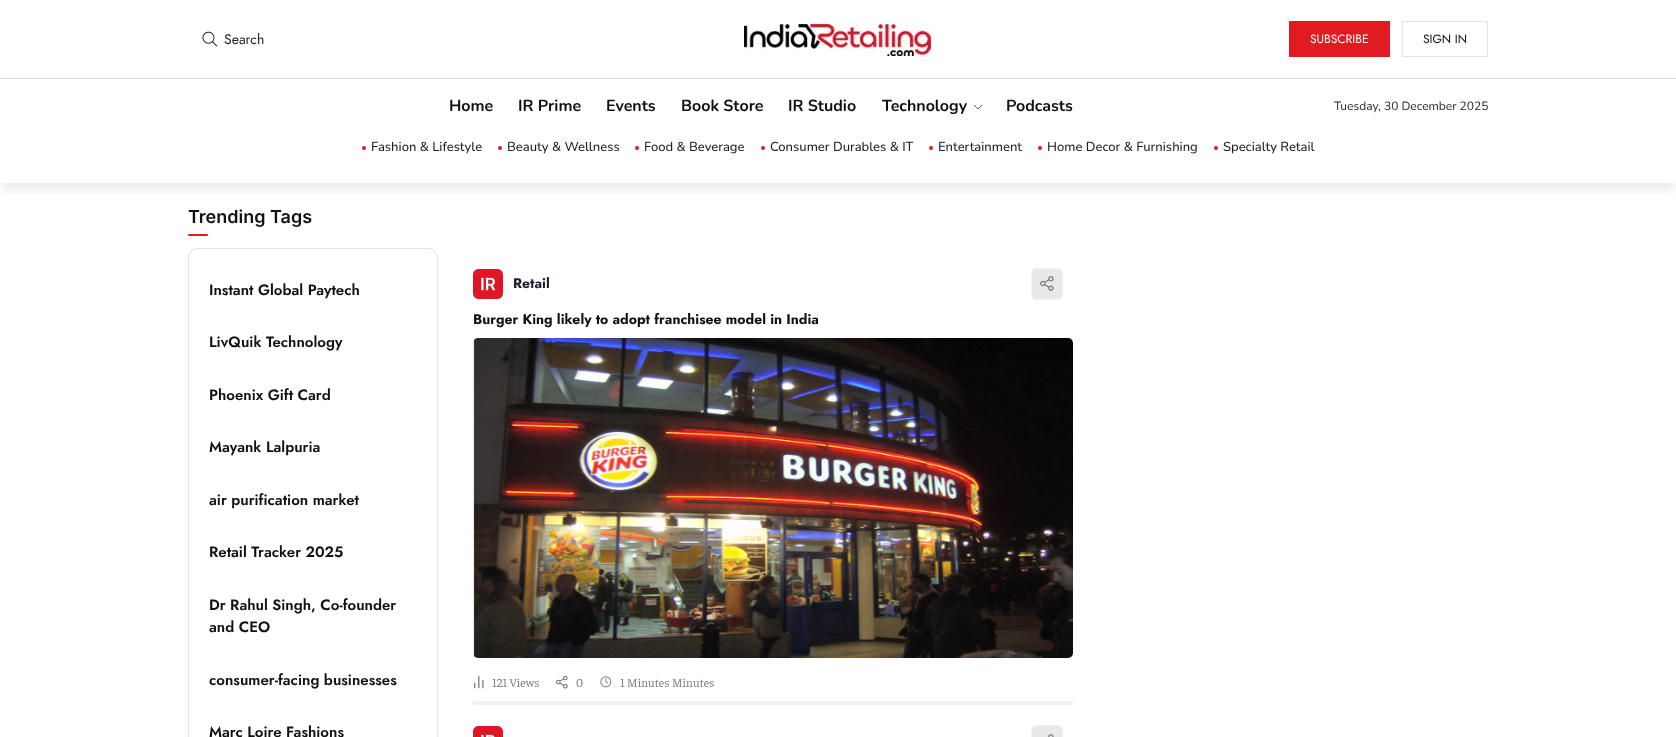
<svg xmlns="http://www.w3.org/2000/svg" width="1676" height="737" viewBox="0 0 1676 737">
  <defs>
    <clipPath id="clip1"><rect x="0" y="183" width="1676" height="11"/></clipPath>
    <clipPath id="clip2"><path d="M983 104.5V109.5H974V104.5Z"/></clipPath>
  </defs>
  <rect width="100%" height="100%" fill="rgb(255,255,255)"/>
  <rect x="0" y="78" width="1676" height="1" fill="rgb(226,226,226)"/>
  <image x="202" y="31" width="16" height="16" href="pic1.png"/>
  <text x="224" y="44" font-family="Jost" font-size="14" fill="rgb(26,32,44)">Search</text>
  <image x="742" y="20" width="192" height="37" href="pic2.png"/>
  <rect x="1289" y="21" width="101" height="36" fill="rgb(226,27,34)"/>
  <text x="1310" y="43" font-family="Jost" font-size="12" fill="rgb(255,255,255)">SUBSCRIBE</text>
  <rect x="1402.5" y="21.5" width="85" height="35" fill="none" stroke="rgb(226,226,226)"/>
  <text x="1423" y="43" font-family="Jost" font-size="12" fill="rgb(17,17,17)">SIGN IN</text>
  <g clip-path="url(#clip1)">
    <rect x="2" y="91" width="1672" height="100" fill="rgba(0,0,0,0.07)" filter="blur(5px)"/>
  </g>
  <g font-family="Nunito" font-size="16" font-weight="bold" fill="rgb(17,17,17)">
    <text x="449" y="111">Home</text>
    <text x="518" y="111">IR Prime</text>
    <text x="606" y="111">Events</text>
    <text x="681" y="111">Book Store</text>
    <text x="788" y="111">IR Studio</text>
    <text x="882" y="111">Technology</text>
  </g>
  <g clip-path="url(#clip2)">
    <path d="M982 105L978 109L974 105" fill="none" stroke="rgb(97,95,95)" stroke-linecap="round" stroke-linejoin="round"/>
  </g>
  <text x="1006" y="111" font-family="Nunito" font-size="16" font-weight="bold" fill="rgb(17,17,17)">Podcasts</text>
  <text x="1334" y="110" font-family="Nunito" font-size="12" fill="rgb(26,32,44)">Tuesday, 30 December 2025</text>
  <circle cx="364" cy="148" r="2" fill="rgb(226,27,34)"/>
  <text x="371" y="151" font-family="Nunito" font-size="13" font-weight="500" fill="rgb(26,32,44)">Fashion &amp; Lifestyle</text>
  <circle cx="500" cy="148" r="2" fill="rgb(226,27,34)"/>
  <text x="507" y="151" font-family="Nunito" font-size="13" font-weight="500" fill="rgb(26,32,44)">Beauty &amp; Wellness</text>
  <circle cx="637" cy="148" r="2" fill="rgb(226,27,34)"/>
  <text x="644" y="151" font-family="Nunito" font-size="13" font-weight="500" fill="rgb(26,32,44)">Food &amp; Beverage</text>
  <circle cx="763" cy="148" r="2" fill="rgb(226,27,34)"/>
  <text x="770" y="151" font-family="Nunito" font-size="13" font-weight="500" fill="rgb(26,32,44)">Consumer Durables &amp; IT</text>
  <circle cx="931" cy="148" r="2" fill="rgb(226,27,34)"/>
  <text x="938" y="151" font-family="Nunito" font-size="13" font-weight="500" fill="rgb(26,32,44)">Entertainment</text>
  <circle cx="1040" cy="148" r="2" fill="rgb(226,27,34)"/>
  <text x="1047" y="151" font-family="Nunito" font-size="13" font-weight="500" fill="rgb(26,32,44)">Home Decor &amp; Furnishing</text>
  <circle cx="1216" cy="148" r="2" fill="rgb(226,27,34)"/>
  <text x="1223" y="151" font-family="Nunito" font-size="13" font-weight="500" fill="rgb(26,32,44)">Specialty Retail</text>
  <text x="188" y="223" font-family="Inter" font-size="18" font-weight="600" fill="rgb(17,17,17)">Trending Tags</text>
  <rect x="188" y="234" width="20" height="2" rx="1" fill="rgb(226,27,34)"/>
  <rect x="188.5" y="248.5" width="249" height="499" rx="9.5" fill="none" stroke="rgb(226,226,226)"/>
  <g font-family="Jost" font-size="15" font-weight="600" fill="rgb(17,17,17)">
    <text x="209" y="295">Instant Global Paytech</text>
    <text x="209" y="347">LivQuik Technology</text>
    <text x="209" y="400">Phoenix Gift Card</text>
    <text x="209" y="452">Mayank Lalpuria</text>
    <text x="209" y="505">air purification market</text>
    <text x="209" y="557">Retail Tracker 2025</text>
    <text>
      <tspan x="209" y="610">Dr Rahul Singh, Co-founder</tspan>
      <tspan x="209" y="632">and CEO</tspan>
    </text>
    <text x="209" y="685">consumer-facing businesses</text>
    <text x="209" y="737">Marc Loire Fashions</text>
  </g>
  <rect x="473" y="701" width="600" height="4" fill="rgb(241,241,241)"/>
  <image x="473" y="269" width="30" height="30" href="pic3.png"/>
  <text x="513" y="288" font-family="Jost" font-size="14" font-weight="bold" fill="rgb(26,32,44)">Retail</text>
  <rect x="1031.5" y="268.5" width="31" height="31" rx="4.5" fill="rgb(233,233,233)" stroke="rgb(241,245,249)"/>
  <image x="1040" y="276" width="14" height="15" href="pic4.png"/>
  <text x="473" y="324" font-family="Jost" font-size="14" font-weight="bold" fill="rgb(17,17,17)">Burger King likely to adopt franchisee model in India</text>
  <image x="473" y="338" width="600" height="320" href="pic5.png"/>
  <image x="473" y="676" width="11" height="13" href="pic6.png"/>
  <text x="492" y="687" font-family="Faustina" font-size="12" fill="rgb(129,129,129)">121 Views</text>
  <image x="555" y="675" width="13" height="14" href="pic7.png"/>
  <text x="576" y="687" font-family="Faustina" font-size="12" fill="rgb(129,129,129)">0</text>
  <image x="600" y="676" width="12" height="12" href="pic8.png"/>
  <text x="620" y="687" font-family="Faustina" font-size="12" fill="rgb(129,129,129)">1 Minutes Minutes</text>
  <image x="473" y="726" width="30" height="11" href="pic9.png"/>
  <rect x="1031.5" y="725.5" width="31" height="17" rx="4.5" fill="rgb(233,233,233)" stroke="rgb(241,245,249)"/>
  <image x="1048" y="734" width="6" height="3" href="pic10.png"/>
</svg>
